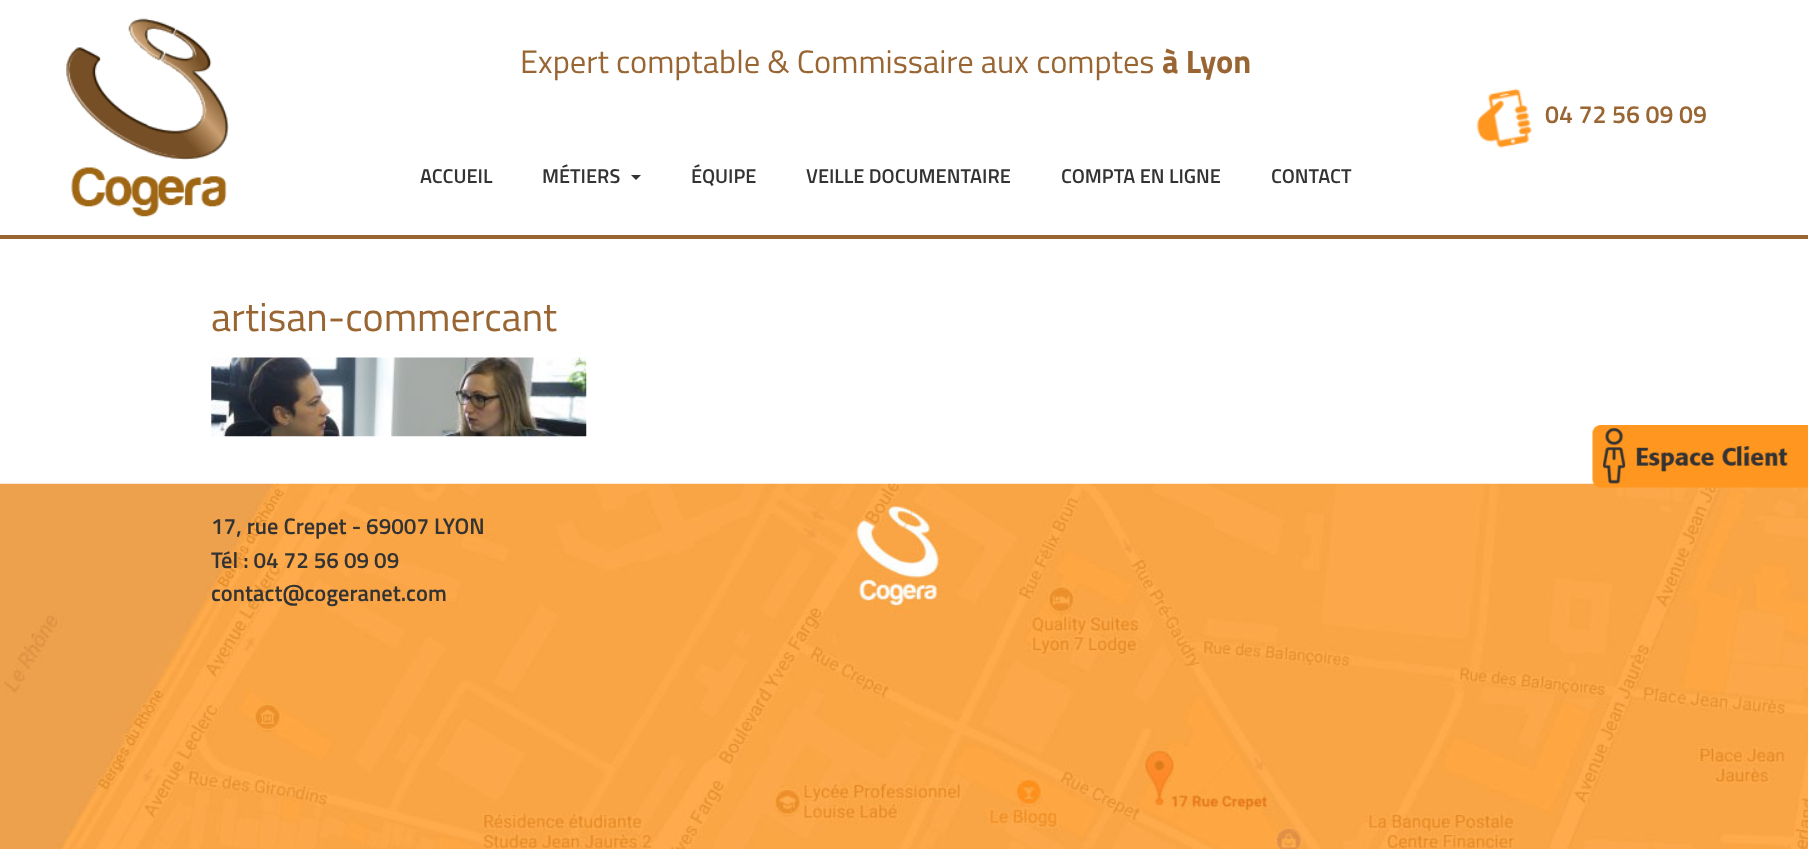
<svg xmlns="http://www.w3.org/2000/svg" width="1808" height="849" viewBox="0 0 1808 849">
  <rect width="100%" height="100%" fill="rgb(255,255,255)"/>
  <image x="66" y="18" width="163" height="199" href="pic1.png"/>
  <text x="520" y="73" font-family="Titillium Web" font-size="32.5" fill="rgb(153,102,51)">Expert comptable &amp; Commissaire aux comptes</text>
  <text x="1162" y="73" font-family="Titillium Web" font-size="32.5" font-weight="bold" fill="rgb(153,102,51)">à Lyon</text>
  <g font-family="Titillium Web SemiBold" font-size="20" font-weight="600" fill="rgb(51,51,51)">
    <text x="420" y="183">ACCUEIL</text>
    <text x="542" y="183">MÉTIERS</text>
  </g>
  <path d="M631 175H641L636 180Z" fill="rgb(51,51,51)"/>
  <g font-family="Titillium Web SemiBold" font-size="20" font-weight="600" fill="rgb(51,51,51)">
    <text x="691" y="183">ÉQUIPE</text>
    <text x="806" y="183">VEILLE DOCUMENTAIRE</text>
    <text x="1061" y="183">COMPTA EN LIGNE</text>
    <text x="1271" y="183">CONTACT</text>
  </g>
  <image x="1476" y="88" width="56" height="60" href="pic2.png"/>
  <text x="1545" y="123" font-family="Titillium Web SemiBold" font-size="25" font-weight="600" fill="rgb(153,102,51)">04 72 56 09 09</text>
  <rect x="0" y="235" width="1808" height="4" fill="rgb(153,102,51)"/>
  <text x="211" y="331" font-family="Titillium Web" font-size="40" fill="rgb(153,102,51)">artisan-commercant</text>
  <image x="211" y="357" width="376" height="80" href="pic3.png"/>
  <image x="0" y="483" width="1808" height="366" href="pic5.png"/>
  <image x="1592" y="425" width="216" height="63" href="pic4.png"/>
  <g font-family="Titillium Web SemiBold" font-size="22.5" font-weight="600" fill="rgb(51,51,51)">
    <text>
      <tspan x="211" y="534">17, rue Crepet - 69007 LYON</tspan>
      <tspan x="211" y="568">Tél : 04 72 56 09 09</tspan>
      <tspan x="211" y="601">contact@cogeranet.com</tspan>
    </text>
  </g>
</svg>
